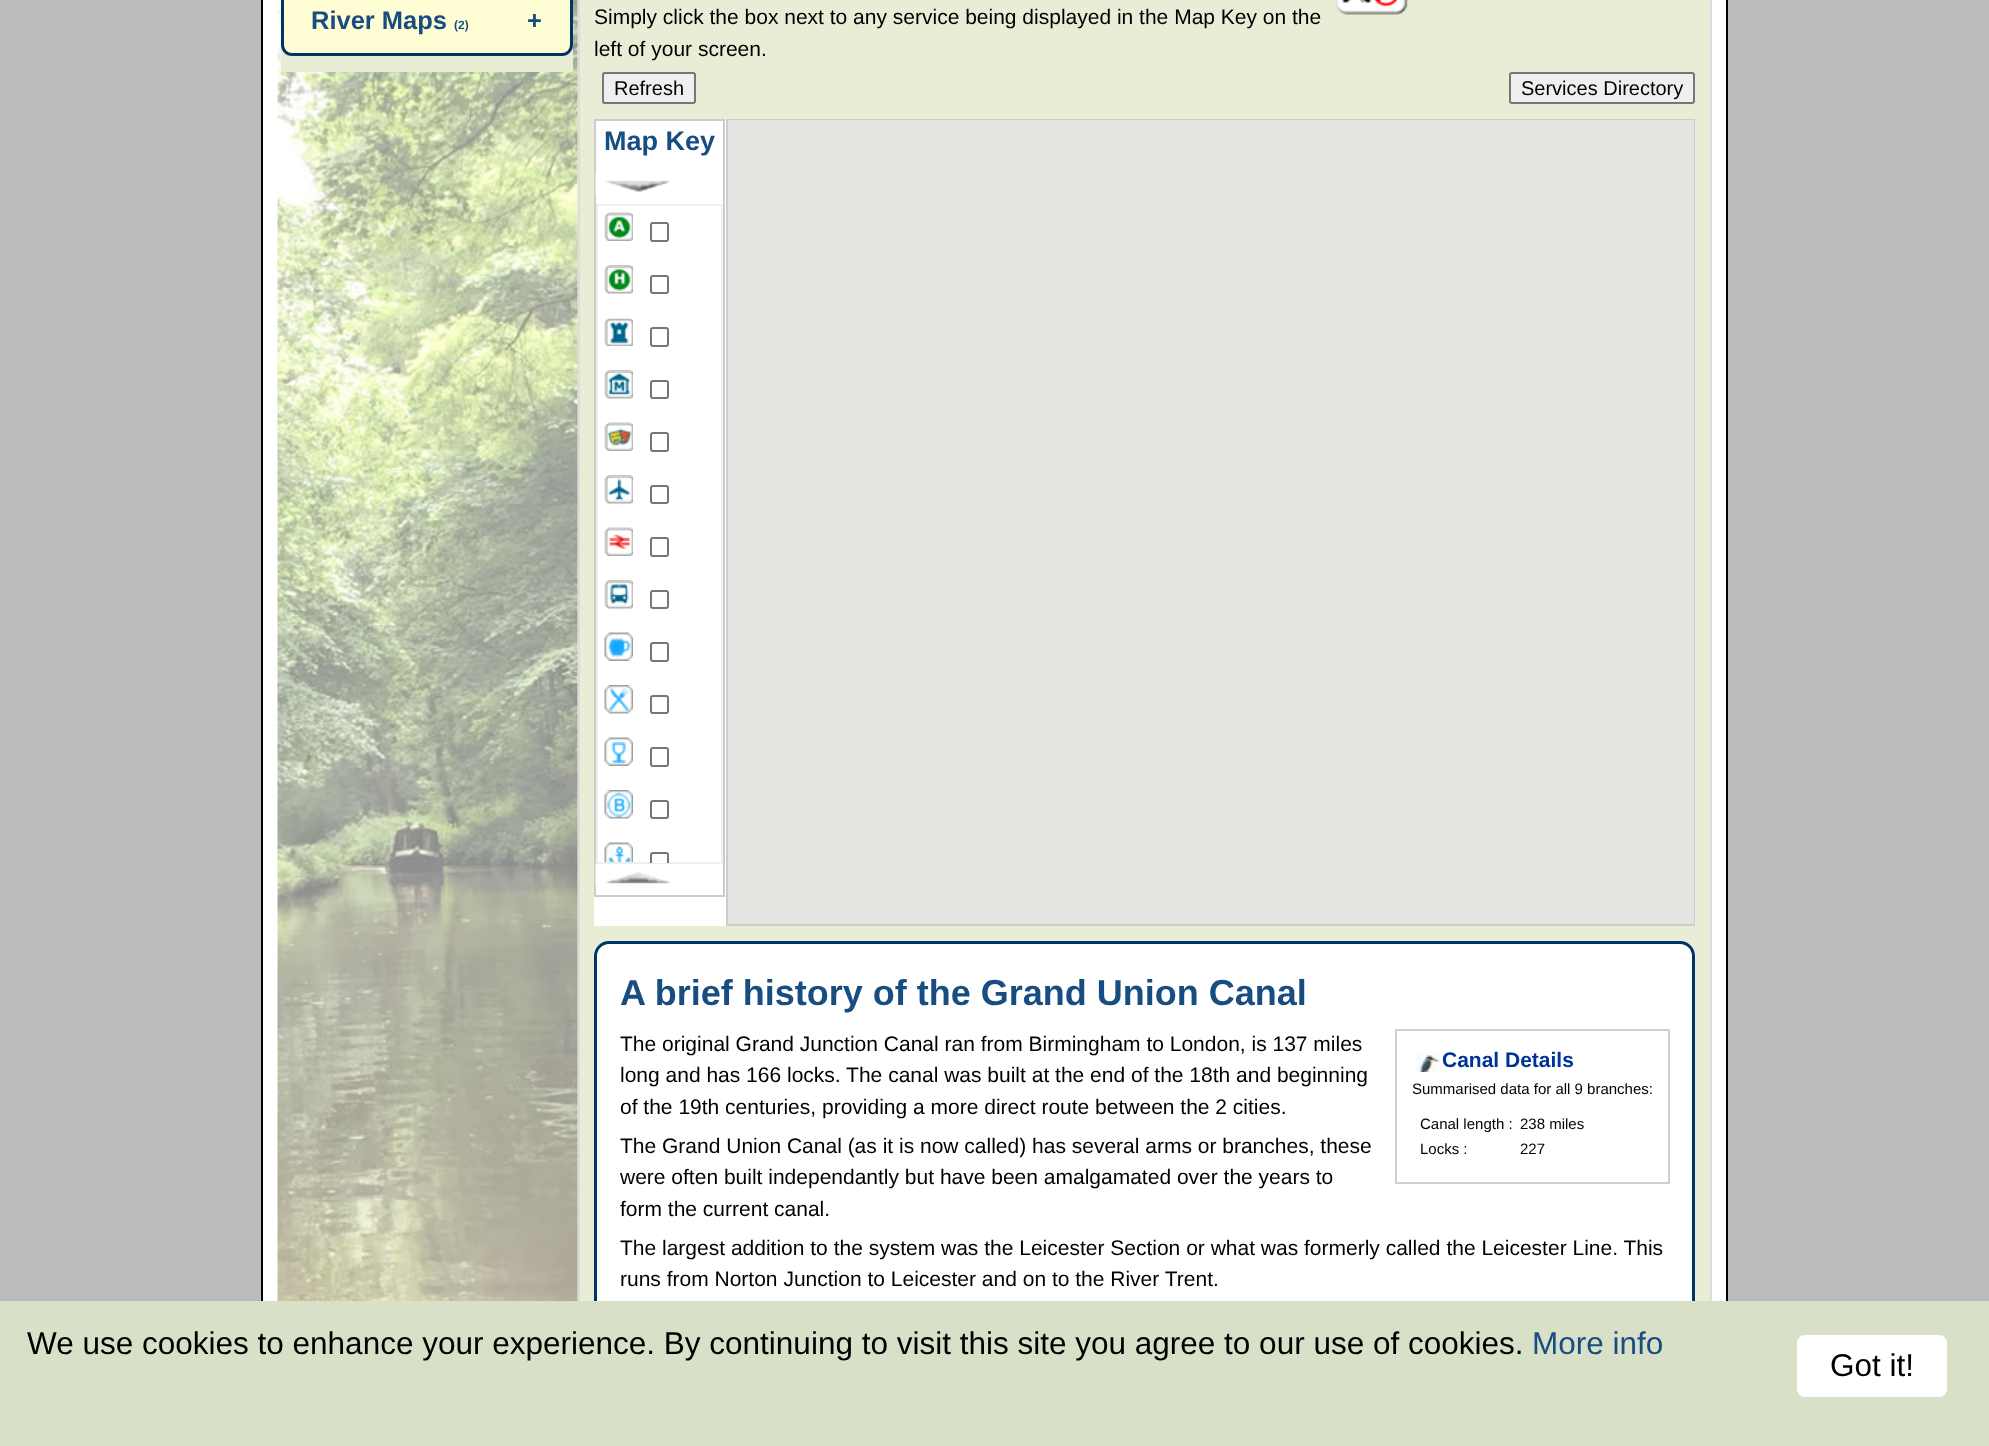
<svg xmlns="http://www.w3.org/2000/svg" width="1989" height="1446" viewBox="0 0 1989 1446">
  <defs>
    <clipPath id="clip1"><rect x="597" y="206" width="125" height="657"/></clipPath>
  </defs>
  <rect width="100%" height="100%" fill="rgb(187,187,187)"/>
  <rect x="263" y="0" width="1463" height="1301" fill="rgb(255,255,255)"/>
  <rect x="262" y="-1" width="1465" height="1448" fill="none" stroke="rgb(0,0,0)" stroke-width="2"/>
  <rect x="577" y="0" width="1133" height="1301" fill="rgb(233,237,214)"/>
  <image x="277" y="0" width="301" height="1301" href="pic1.png"/>
  <rect x="281" y="45" width="292" height="27" fill="rgb(233,237,214)"/>
  <rect x="282.5" y="-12.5" width="289" height="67" rx="9.5" fill="rgb(255,253,211)" stroke="rgb(0,51,102)" stroke-width="3"/>
  <text x="311" y="29" font-family="Liberation Sans" font-size="25.5" font-weight="bold" fill="rgb(24,77,129)">River Maps</text>
  <text x="454" y="29" font-family="Liberation Sans" font-size="12" font-weight="bold" fill="rgb(24,77,129)">(2)</text>
  <text x="527" y="29" font-family="Liberation Sans" font-size="25.5" font-weight="bold" fill="rgb(24,77,129)">+</text>
  <rect x="579" y="-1" width="1132" height="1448" fill="none" stroke="rgb(221,221,221)" stroke-width="2"/>
  <g font-family="Liberation Sans" font-size="21" fill="rgb(0,0,0)">
    <text>
      <tspan x="594" y="24">Simply click the box next to any service being displayed in the Map Key on the</tspan>
      <tspan x="594" y="56">left of your screen.</tspan>
    </text>
  </g>
  <image x="1336" y="0" width="72" height="15" href="pic2.png"/>
  <rect x="603" y="73" width="92" height="30" rx="2" fill="rgb(239,239,239)" stroke="rgb(118,118,118)" stroke-width="2"/>
  <text x="614" y="95" font-family="Liberation Sans" font-size="20" fill="rgb(0,0,0)">Refresh</text>
  <rect x="1510" y="73" width="184" height="30" rx="2" fill="rgb(239,239,239)" stroke="rgb(118,118,118)" stroke-width="2"/>
  <text x="1521" y="95" font-family="Liberation Sans" font-size="20" fill="rgb(0,0,0)">Services Directory</text>
  <rect x="594" y="119" width="132" height="807" fill="rgb(255,255,255)"/>
  <rect x="595" y="120" width="129" height="776" fill="none" stroke="rgb(204,204,204)" stroke-width="2"/>
  <text x="604" y="150" font-family="Liberation Sans" font-size="27" font-weight="bold" fill="rgb(24,77,129)">Map Key</text>
  <image x="595" y="173" width="76" height="22" href="pic3.png"/>
  <rect x="597" y="205" width="125" height="658" fill="none" stroke="rgb(238,238,238)" stroke-width="2"/>
  <image x="604" y="212" width="29" height="29" href="pic4.png"/>
  <rect x="651" y="223" width="17" height="18" rx="2" fill="none" stroke="rgb(118,118,118)" stroke-width="2"/>
  <image x="604" y="265" width="29" height="29" href="pic5.png"/>
  <rect x="651" y="276" width="17" height="17" rx="2" fill="none" stroke="rgb(118,118,118)" stroke-width="2"/>
  <image x="604" y="317" width="29" height="29" href="pic6.png"/>
  <rect x="651" y="328" width="17" height="18" rx="2" fill="none" stroke="rgb(118,118,118)" stroke-width="2"/>
  <image x="604" y="370" width="29" height="29" href="pic7.png"/>
  <rect x="651" y="381" width="17" height="17" rx="2" fill="none" stroke="rgb(118,118,118)" stroke-width="2"/>
  <image x="604" y="422" width="29" height="29" href="pic8.png"/>
  <rect x="651" y="433" width="17" height="18" rx="2" fill="none" stroke="rgb(118,118,118)" stroke-width="2"/>
  <image x="604" y="475" width="29" height="29" href="pic9.png"/>
  <rect x="651" y="486" width="17" height="17" rx="2" fill="none" stroke="rgb(118,118,118)" stroke-width="2"/>
  <image x="604" y="527" width="29" height="29" href="pic10.png"/>
  <rect x="651" y="538" width="17" height="18" rx="2" fill="none" stroke="rgb(118,118,118)" stroke-width="2"/>
  <image x="604" y="580" width="29" height="29" href="pic11.png"/>
  <rect x="651" y="591" width="17" height="17" rx="2" fill="none" stroke="rgb(118,118,118)" stroke-width="2"/>
  <image x="604" y="632" width="29" height="29" href="pic12.png"/>
  <rect x="651" y="643" width="17" height="18" rx="2" fill="none" stroke="rgb(118,118,118)" stroke-width="2"/>
  <image x="604" y="685" width="29" height="29" href="pic13.png"/>
  <rect x="651" y="696" width="17" height="17" rx="2" fill="none" stroke="rgb(118,118,118)" stroke-width="2"/>
  <image x="604" y="737" width="29" height="29" href="pic14.png"/>
  <rect x="651" y="748" width="17" height="18" rx="2" fill="none" stroke="rgb(118,118,118)" stroke-width="2"/>
  <image x="604" y="790" width="29" height="29" href="pic15.png"/>
  <rect x="651" y="801" width="17" height="17" rx="2" fill="none" stroke="rgb(118,118,118)" stroke-width="2"/>
  <image x="604" y="842" width="29" height="20" href="pic16.png"/>
  <path d="M653 852H666C667.5 852 669 853.5 669 855V863H650V855C650 853.5 651.5 852 653 852Z" fill="rgb(255,255,255)"/>
  <image x="595" y="865" width="76" height="21" href="pic17.png"/>
  <g clip-path="url(#clip1)">
    <rect x="651" y="853" width="17" height="18" rx="2" fill="none" stroke="rgb(118,118,118)" stroke-width="2"/>
  </g>
  <rect x="727" y="120" width="967" height="805" fill="none" stroke="rgb(204,204,204)" stroke-width="2"/>
  <rect x="728" y="120" width="966" height="804" fill="rgb(229,227,223)"/>
  <rect x="595.5" y="942.5" width="1098" height="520" rx="13.5" fill="rgb(255,255,255)" stroke="rgb(0,51,102)" stroke-width="3"/>
  <text x="620" y="1005" font-family="Liberation Sans" font-size="36" font-weight="bold" fill="rgb(24,77,129)">A brief history of the Grand Union Canal</text>
  <g font-family="Liberation Sans" font-size="21" fill="rgb(0,0,0)">
    <text>
      <tspan x="620" y="1051">The original Grand Junction Canal ran from Birmingham to London, is 137 miles</tspan>
      <tspan x="620" y="1082">long and has 166 locks. The canal was built at the end of the 18th and beginning</tspan>
      <tspan x="620" y="1114">of the 19th centuries, providing a more direct route between the 2 cities.</tspan>
    </text>
  </g>
  <rect x="1396" y="1030" width="273" height="153" fill="none" stroke="rgb(208,208,208)" stroke-width="2"/>
  <image x="1416" y="1052" width="24" height="20" href="pic18.png"/>
  <text x="1442" y="1067" font-family="Liberation Sans" font-size="21" font-weight="bold" fill="rgb(0,51,153)">Canal Details</text>
  <g font-family="Liberation Sans" font-size="15" fill="rgb(0,0,0)">
    <text x="1412" y="1094">Summarised data for all 9 branches:</text>
    <text x="1420" y="1129">Canal length :</text>
    <text x="1520" y="1129">238 miles</text>
    <text x="1420" y="1154">Locks :</text>
    <text x="1520" y="1154">227</text>
  </g>
  <g font-family="Liberation Sans" font-size="21" fill="rgb(0,0,0)">
    <text>
      <tspan x="620" y="1153">The Grand Union Canal (as it is now called) has several arms or branches, these</tspan>
      <tspan x="620" y="1184">were often built independantly but have been amalgamated over the years to</tspan>
      <tspan x="620" y="1216">form the current canal.</tspan>
      <tspan x="620" y="1255">The largest addition to the system was the Leicester Section or what was formerly called the Leicester Line. This</tspan>
      <tspan x="620" y="1286">runs from Norton Junction to Leicester and on to the River Trent.</tspan>
    </text>
  </g>
  <rect x="0" y="1301" width="1989" height="145" fill="rgb(216,224,200)"/>
  <text x="27" y="1354" font-family="Liberation Sans" font-size="31.5" fill="rgb(0,0,0)">We use cookies to enhance your experience. By continuing to visit this site you agree to our use of cookies.</text>
  <text x="1532" y="1354" font-family="Liberation Sans" font-size="31.5" fill="rgb(24,77,129)">More info</text>
  <rect x="1797" y="1335" width="150" height="62" rx="8" fill="rgb(255,255,255)"/>
  <text x="1830" y="1376" font-family="Liberation Sans" font-size="31.5" fill="rgb(0,0,0)">Got it!</text>
</svg>
